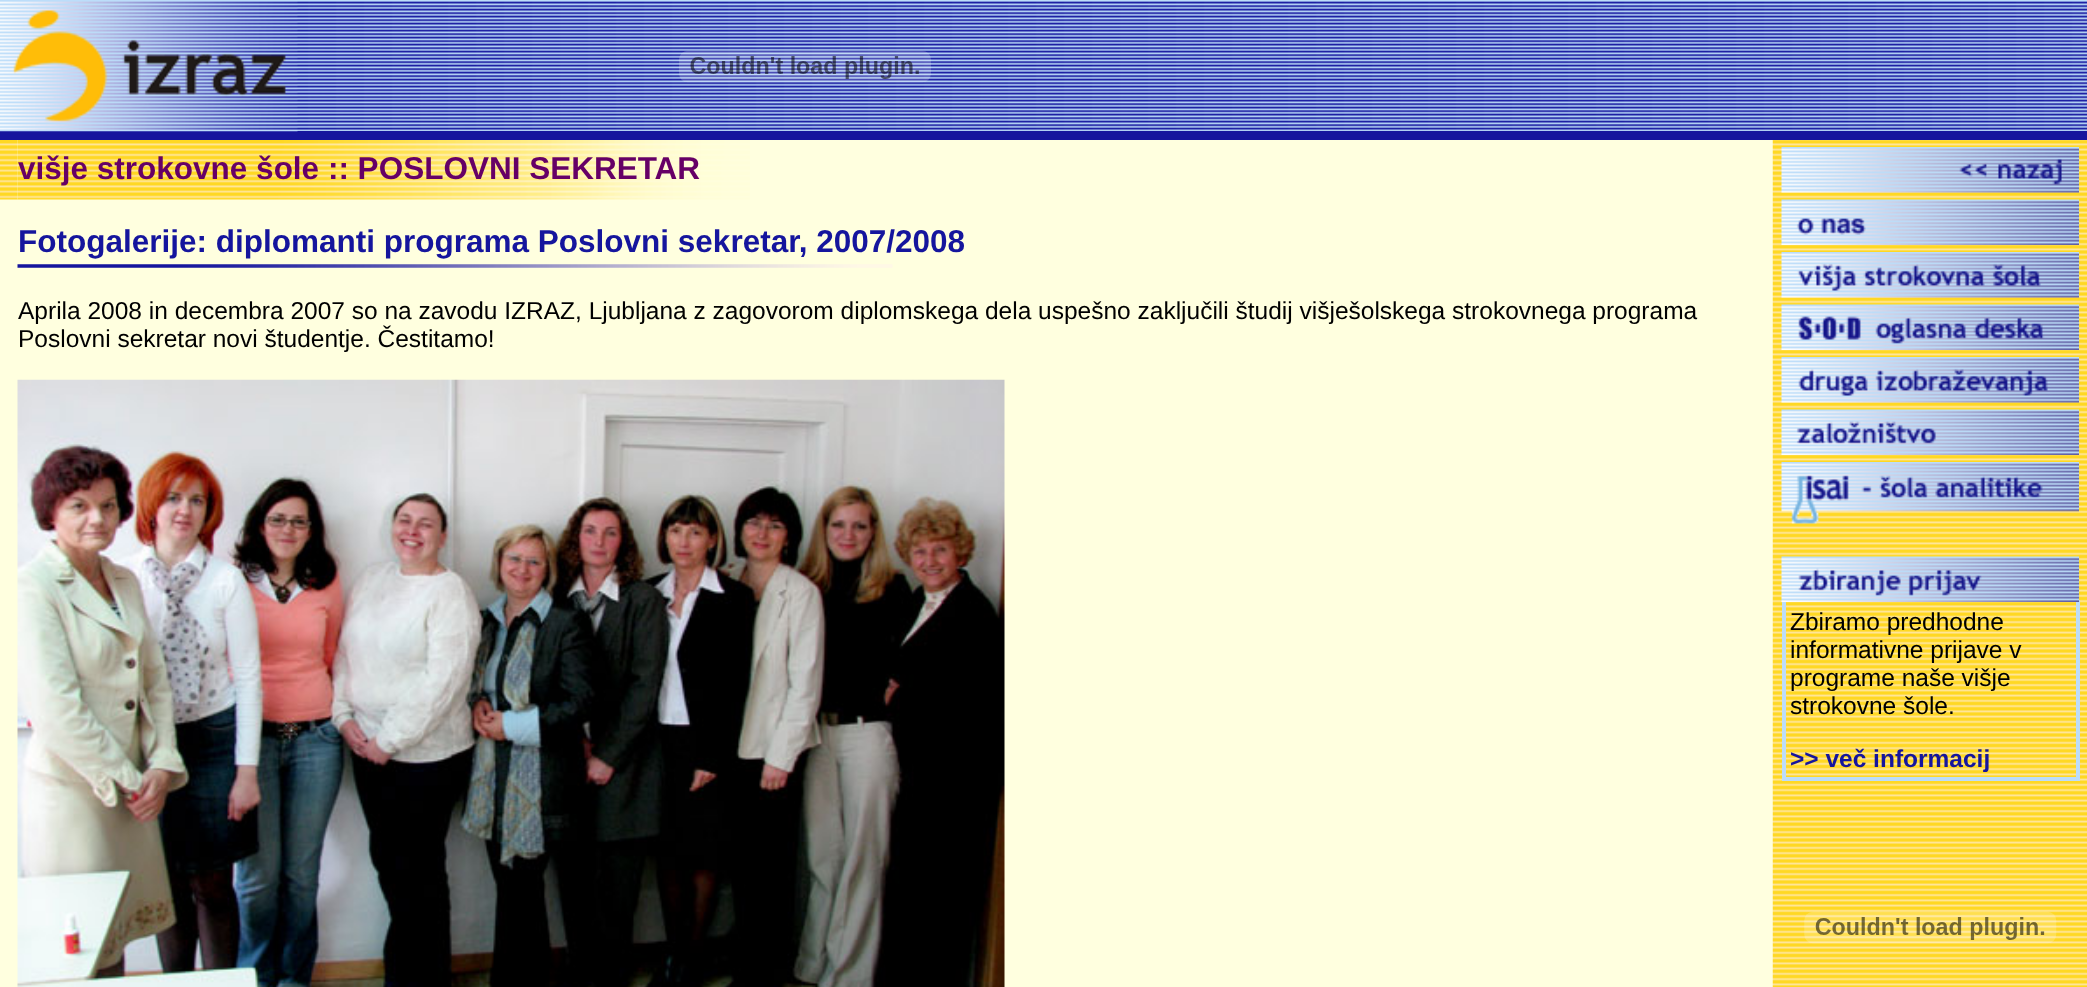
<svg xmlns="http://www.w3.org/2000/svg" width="2087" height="987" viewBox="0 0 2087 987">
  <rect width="100%" height="100%" fill="rgb(255,255,255)"/>
  <image x="0" y="0" width="2087" height="131" href="pic1.png"/>
  <rect x="0" y="131" width="2087" height="9" fill="rgb(21,21,157)"/>
  <image x="0" y="1" width="298" height="131" href="pic2.png"/>
  <image x="679" y="50" width="252" height="33" href="pic3.png"/>
  <rect x="0" y="140" width="1773" height="847" fill="rgb(255,255,223)"/>
  <image x="17" y="140" width="733" height="60" href="pic5.png"/>
  <image x="0" y="140" width="18" height="60" href="pic4.png"/>
  <text x="18" y="179" font-family="Liberation Sans" font-size="31.5" font-weight="bold" fill="rgb(102,0,102)">višje strokovne šole :: POSLOVNI SEKRETAR</text>
  <text x="18" y="252" font-family="Liberation Sans" font-size="31.5" font-weight="bold" fill="rgb(21,21,157)">Fotogalerije: diplomanti programa Poslovni sekretar, 2007/2008</text>
  <image x="17" y="264" width="876" height="4" href="pic6.png"/>
  <g font-family="Liberation Sans" font-size="24.5" fill="rgb(0,0,0)">
    <text>
      <tspan x="18" y="319">Aprila 2008 in decembra 2007 so na zavodu IZRAZ, Ljubljana z zagovorom diplomskega dela uspešno zaključili študij višješolskega strokovnega programa</tspan>
      <tspan x="18" y="347">Poslovni sekretar novi študentje. Čestitamo!</tspan>
    </text>
  </g>
  <image x="17" y="379" width="988" height="608" href="pic7.png"/>
  <image x="1772" y="140" width="315" height="847" href="pic8.png"/>
  <image x="1781" y="147" width="298" height="46" href="pic9.png"/>
  <image x="1781" y="199" width="298" height="46" href="pic10.png"/>
  <image x="1781" y="252" width="298" height="46" href="pic11.png"/>
  <image x="1781" y="304" width="298" height="46" href="pic12.png"/>
  <image x="1781" y="357" width="298" height="46" href="pic13.png"/>
  <image x="1781" y="409" width="298" height="46" href="pic14.png"/>
  <image x="1781" y="462" width="298" height="62" href="pic15.png"/>
  <rect x="2076" y="600" width="4" height="181" fill="rgb(188,221,249)"/>
  <rect x="1782" y="777" width="297" height="4" fill="rgb(188,221,249)"/>
  <rect x="1782" y="600" width="4" height="181" fill="rgb(188,221,249)"/>
  <image x="1781" y="556" width="298" height="46" href="pic16.png"/>
  <g font-family="Liberation Sans" font-size="24.5" fill="rgb(0,0,0)">
    <text>
      <tspan x="1790" y="630">Zbiramo predhodne</tspan>
      <tspan x="1790" y="658">informativne prijave v</tspan>
      <tspan x="1790" y="686">programe naše višje</tspan>
      <tspan x="1790" y="714">strokovne šole.</tspan>
    </text>
  </g>
  <text x="1790" y="767" font-family="Liberation Sans" font-size="24.5" font-weight="bold" fill="rgb(21,21,157)">&gt;&gt; več informacij</text>
  <image x="1804" y="911" width="253" height="33" href="pic17.png"/>
</svg>
